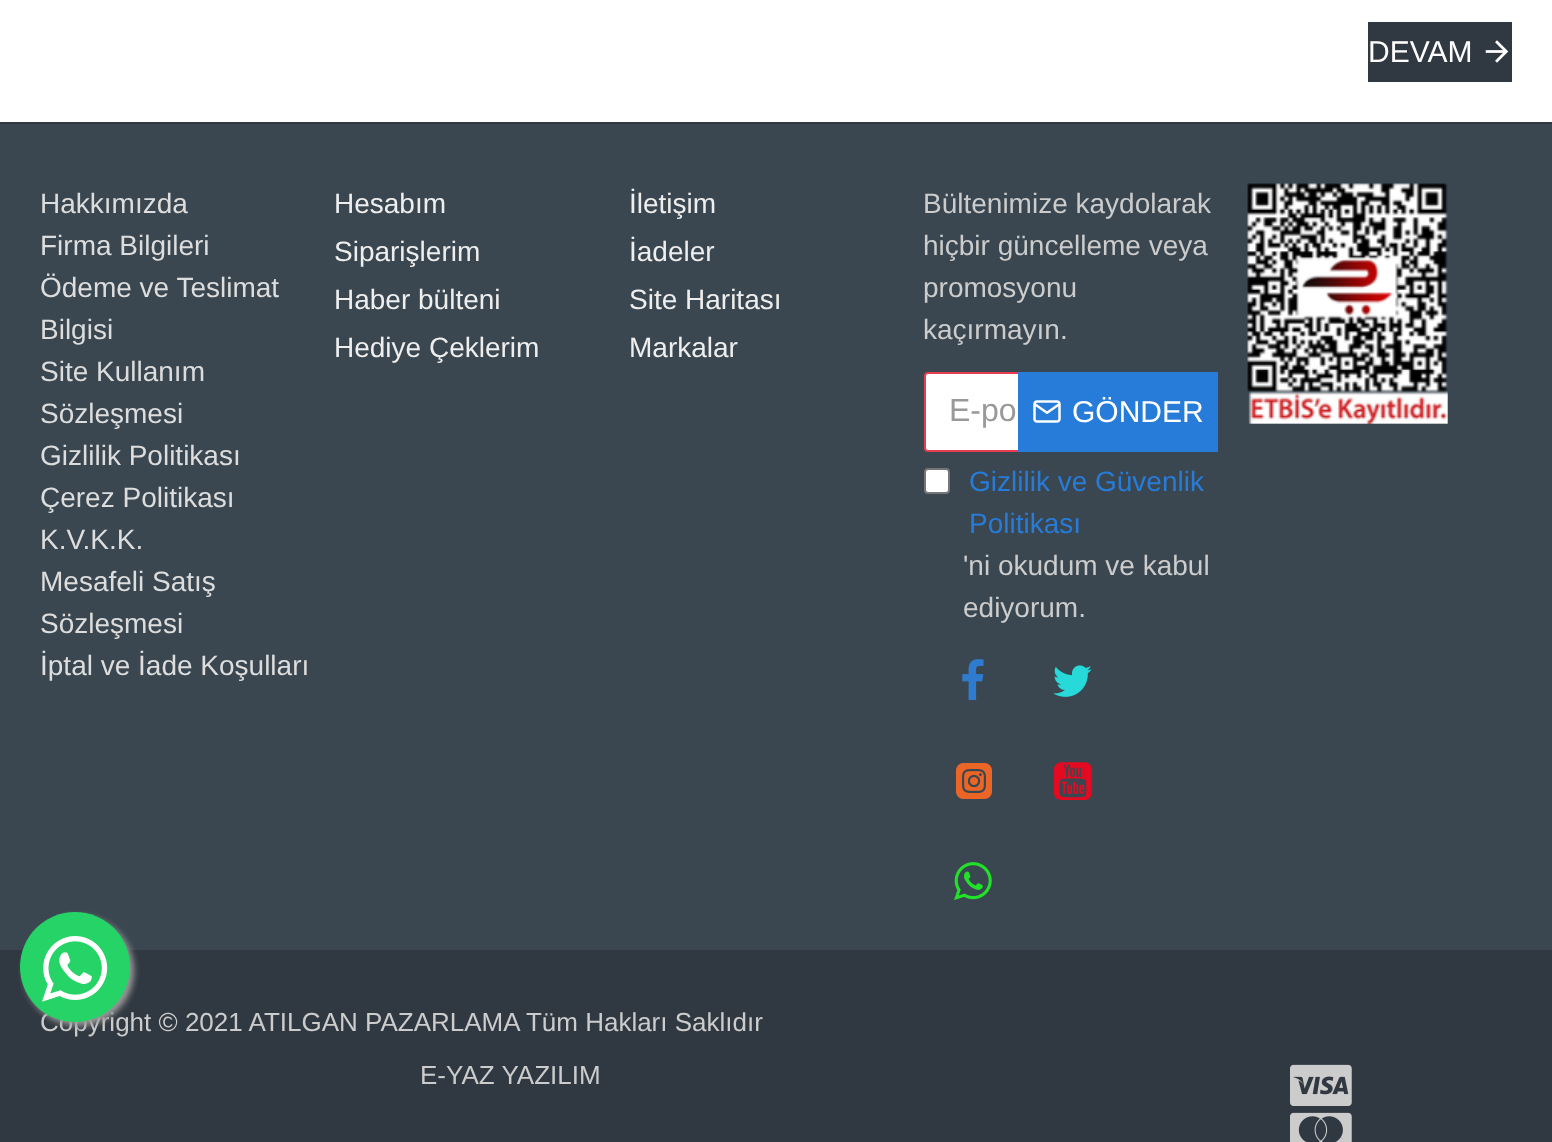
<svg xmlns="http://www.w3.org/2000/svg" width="1552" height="1142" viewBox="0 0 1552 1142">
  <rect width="100%" height="100%" fill="rgb(255,255,255)"/>
  <rect x="1368" y="22" width="144" height="60" fill="rgb(48,56,65)"/>
  <text x="1368" y="62" font-family="Liberation Sans" font-size="30" fill="rgb(255,255,255)">DEVAM</text>
  <image x="1485" y="40" width="24" height="23" href="pic1.png"/>
  <rect x="0" y="124" width="1552" height="826" fill="rgb(58,71,80)"/>
  <rect x="0" y="122" width="1552" height="2" fill="rgb(48,56,65)"/>
  <g font-family="Liberation Sans" font-size="28" fill="rgb(221,221,221)">
    <text>
      <tspan x="40" y="213">Hakkımızda</tspan>
      <tspan x="40" y="255">Firma Bilgileri</tspan>
      <tspan x="40" y="297">Ödeme ve Teslimat</tspan>
      <tspan x="40" y="339">Bilgisi</tspan>
      <tspan x="40" y="381">Site Kullanım</tspan>
      <tspan x="40" y="423">Sözleşmesi</tspan>
      <tspan x="40" y="465">Gizlilik Politikası</tspan>
      <tspan x="40" y="507">Çerez Politikası</tspan>
      <tspan x="40" y="549">K.V.K.K.</tspan>
      <tspan x="40" y="591">Mesafeli Satış</tspan>
      <tspan x="40" y="633">Sözleşmesi</tspan>
      <tspan x="40" y="675">İptal ve İade Koşulları</tspan>
    </text>
  </g>
  <g font-family="Liberation Sans" font-size="28" fill="rgb(238,238,238)">
    <text>
      <tspan x="334" y="213">Hesabım</tspan>
      <tspan x="334" y="261">Siparişlerim</tspan>
      <tspan x="334" y="309">Haber bülteni</tspan>
      <tspan x="334" y="357">Hediye Çeklerim</tspan>
    </text>
    <text>
      <tspan x="629" y="213">İletişim</tspan>
      <tspan x="629" y="261">İadeler</tspan>
      <tspan x="629" y="309">Site Haritası</tspan>
      <tspan x="629" y="357">Markalar</tspan>
    </text>
  </g>
  <g font-family="Liberation Sans" font-size="28" fill="rgb(204,204,204)">
    <text>
      <tspan x="923" y="213">Bültenimize kaydolarak</tspan>
      <tspan x="923" y="255">hiçbir güncelleme veya</tspan>
      <tspan x="923" y="297">promosyonu</tspan>
      <tspan x="923" y="339">kaçırmayın.</tspan>
    </text>
  </g>
  <rect x="925" y="373" width="292" height="78" rx="3" fill="rgb(255,255,255)" stroke="rgb(231,61,80)" stroke-width="2"/>
  <text x="949" y="421" font-family="Liberation Sans" font-size="32" fill="rgb(153,153,153)">E-po</text>
  <rect x="1018" y="372" width="200" height="80" fill="rgb(39,124,217)"/>
  <image x="1033" y="400" width="28" height="23" href="pic2.png"/>
  <text x="1072" y="422" font-family="Liberation Sans" font-size="30" fill="rgb(255,255,255)">GÖNDER</text>
  <rect x="925" y="469" width="24" height="24" rx="3" fill="rgb(255,255,255)" stroke="rgb(118,118,118)" stroke-width="2"/>
  <g font-family="Liberation Sans" font-size="28" fill="rgb(39,124,217)">
    <text>
      <tspan x="969" y="491">Gizlilik ve Güvenlik</tspan>
      <tspan x="969" y="533">Politikası</tspan>
    </text>
  </g>
  <g font-family="Liberation Sans" font-size="28" fill="rgb(204,204,204)">
    <text>
      <tspan x="963" y="575">'ni okudum ve kabul</tspan>
      <tspan x="963" y="617">ediyorum.</tspan>
    </text>
  </g>
  <image x="962" y="659" width="22" height="41" href="pic3.png"/>
  <image x="1053" y="665" width="39" height="32" href="pic4.png"/>
  <image x="956" y="763" width="36" height="36" href="pic5.png"/>
  <image x="1054" y="762" width="38" height="38" href="pic6.png"/>
  <image x="954" y="862" width="38" height="38" href="pic7.png"/>
  <image x="1247" y="183" width="201" height="241" href="pic8.png"/>
  <rect x="0" y="950" width="1552" height="192" fill="rgb(48,56,65)"/>
  <g font-family="Liberation Sans" font-size="26" fill="rgb(204,204,204)">
    <text x="40" y="1031">Copyright © 2021 ATILGAN PAZARLAMA Tüm Hakları Saklıdır</text>
    <text x="420" y="1084">E-YAZ YAZILIM</text>
  </g>
  <image x="1290" y="1064" width="62" height="42" href="pic9.png"/>
  <image x="1290" y="1112" width="62" height="30" href="pic10.png"/>
  <rect x="24" y="916" width="110" height="110" rx="55" fill="rgb(153,153,153)" filter="blur(3px)"/>
  <circle cx="75" cy="967" r="55" fill="rgb(37,211,102)"/>
  <image x="42" y="936" width="66" height="66" href="pic11.png"/>
</svg>
